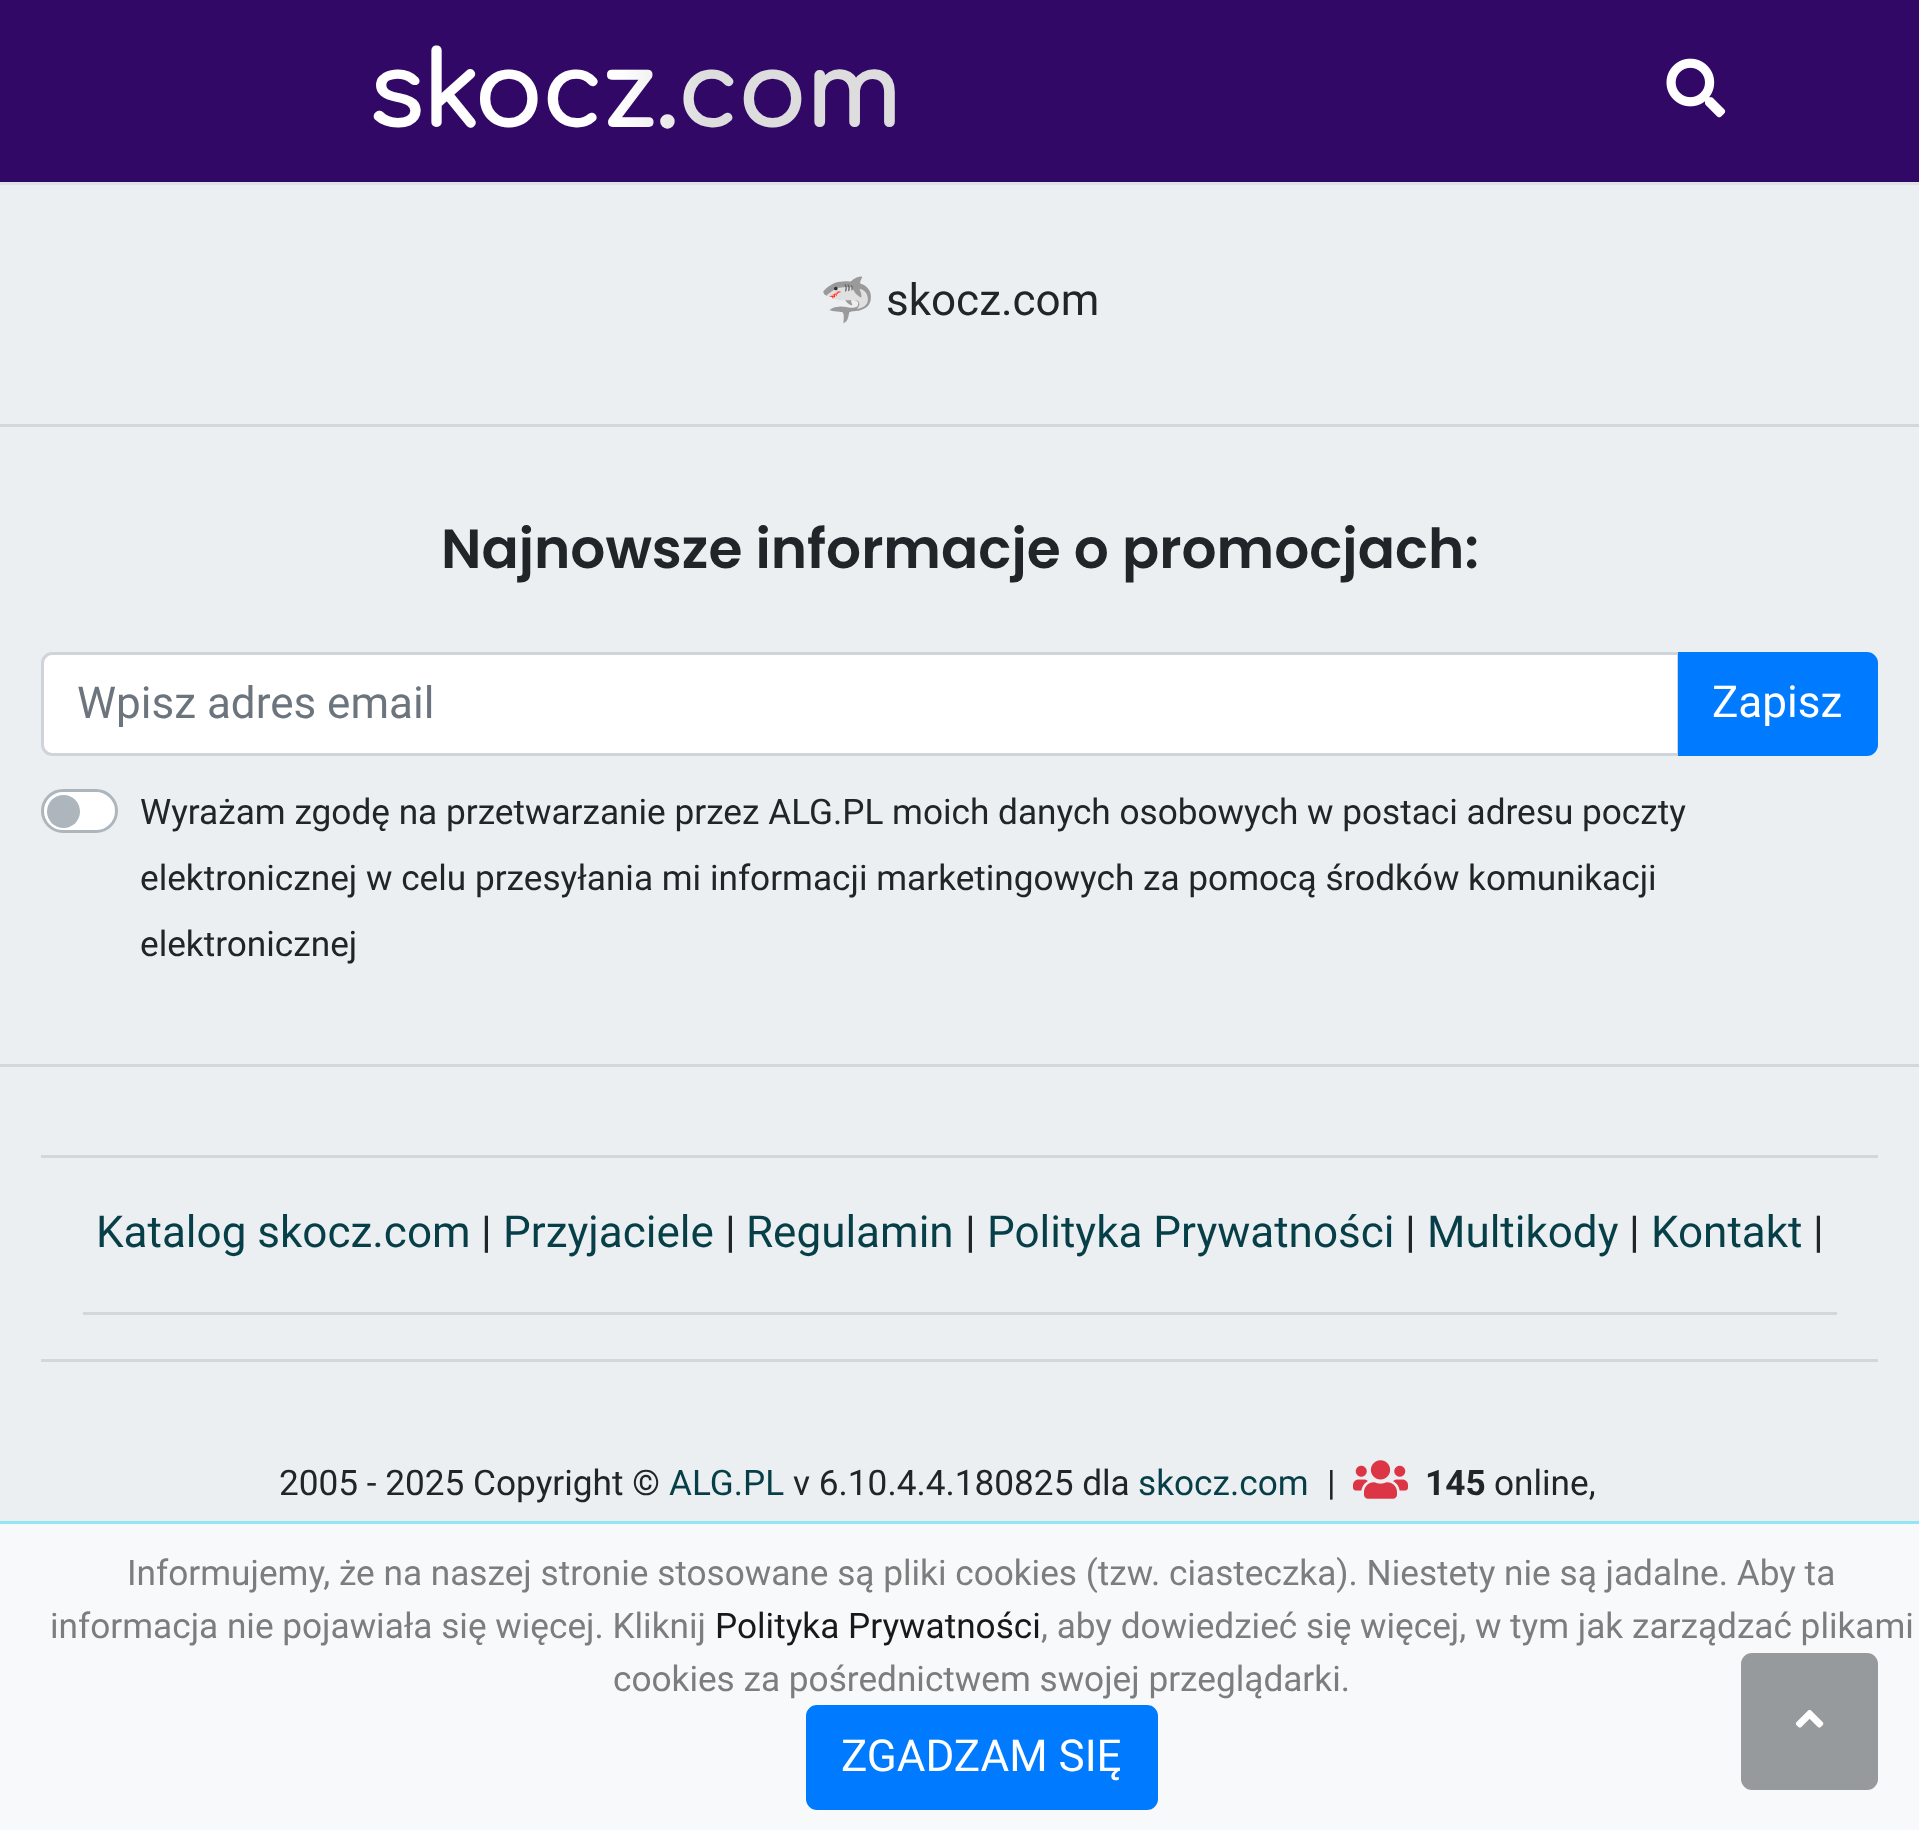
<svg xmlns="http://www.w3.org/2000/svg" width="1919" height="1830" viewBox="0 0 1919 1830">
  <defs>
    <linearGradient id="g1" gradientUnits="userSpaceOnUse" x1="368" y1="94" x2="901" y2="94"><stop offset="0" stop-color="rgb(255,255,255)"/><stop offset="0.47" stop-color="rgb(255,255,255)"/><stop offset="0.63" stop-color="rgb(221,221,221)"/><stop offset="1" stop-color="rgb(221,221,221)"/></linearGradient>
  </defs>
  <rect width="100%" height="100%" fill="rgb(236,239,241)"/>
  <rect x="0" y="0" width="1919" height="182" fill="rgb(50,8,102)"/>
  <rect x="0" y="182" width="1919" height="3" fill="rgb(222,226,230)"/>
  <text x="368" y="127" font-family="Comfortaa" font-size="104.5" font-weight="bold" letter-spacing="-2.75" fill="url(#g1)">skocz.com</text>
  <image x="1666" y="58" width="60" height="60" href="pic1.png"/>
  <text x="820" y="315" font-family="Noto Color Emoji" font-size="44" fill="rgb(33,37,41)">🦈</text>
  <text x="886" y="315" font-family="Roboto" font-size="44" fill="rgb(33,37,41)">skocz.com</text>
  <rect x="0" y="424" width="1919" height="3" fill="rgb(212,215,217)"/>
  <text x="441" y="568" font-family="Poppins" font-size="55" font-weight="600" fill="rgb(33,37,41)">Najnowsze informacje o promocjach:</text>
  <path d="M52 653.5H1678.5V754.5H52C47 754.5 42.5 750 42.5 745V663C42.5 658 47 653.5 52 653.5Z" fill="rgb(255,255,255)" stroke="rgb(206,212,218)" stroke-width="3"/>
  <text x="77" y="718" font-family="Roboto" font-size="44" fill="rgb(108,117,125)">Wpisz adres email</text>
  <path d="M1679.5 653.5H1867C1872 653.5 1876.5 658 1876.5 663V745C1876.5 750 1872 754.5 1867 754.5H1679.5Z" fill="rgb(0,123,255)" stroke="rgb(0,123,255)" stroke-width="3"/>
  <text x="1712" y="717" font-family="Roboto" font-size="44" fill="rgb(255,255,255)">Zapisz</text>
  <rect x="42.5" y="790.5" width="74" height="41" rx="20.5" fill="rgb(255,255,255)" stroke="rgb(173,181,189)" stroke-width="3"/>
  <circle cx="63.5" cy="811.5" r="16.5" fill="rgb(173,181,189)"/>
  <g font-family="Roboto" font-size="35.2" fill="rgb(33,37,41)">
    <text>
      <tspan x="140" y="824">Wyrażam zgodę na przetwarzanie przez ALG.PL moich danych osobowych w postaci adresu poczty</tspan>
      <tspan x="140" y="890">elektronicznej w celu przesyłania mi informacji marketingowych za pomocą środków komunikacji</tspan>
      <tspan x="140" y="956">elektronicznej</tspan>
    </text>
  </g>
  <rect x="0" y="1064" width="1919" height="3" fill="rgb(212,215,217)"/>
  <rect x="41" y="1155" width="1837" height="3" fill="rgb(212,215,217)"/>
  <text x="96" y="1247" font-family="Roboto" font-size="44" fill="rgb(7,63,72)">Katalog skocz.com</text>
  <text x="481" y="1247" font-family="Roboto" font-size="44" fill="rgb(33,37,41)">|</text>
  <text x="503" y="1247" font-family="Roboto" font-size="44" fill="rgb(7,63,72)">Przyjaciele</text>
  <text x="725" y="1247" font-family="Roboto" font-size="44" fill="rgb(33,37,41)">|</text>
  <text x="746" y="1247" font-family="Roboto" font-size="44" fill="rgb(7,63,72)">Regulamin</text>
  <text x="965" y="1247" font-family="Roboto" font-size="44" fill="rgb(33,37,41)">|</text>
  <text x="987" y="1247" font-family="Roboto" font-size="44" fill="rgb(7,63,72)">Polityka Prywatności</text>
  <text x="1405" y="1247" font-family="Roboto" font-size="44" fill="rgb(33,37,41)">|</text>
  <text x="1427" y="1247" font-family="Roboto" font-size="44" fill="rgb(7,63,72)">Multikody</text>
  <text x="1629" y="1247" font-family="Roboto" font-size="44" fill="rgb(33,37,41)">|</text>
  <text x="1651" y="1247" font-family="Roboto" font-size="44" fill="rgb(7,63,72)">Kontakt</text>
  <text x="1813" y="1247" font-family="Roboto" font-size="44" fill="rgb(33,37,41)">|</text>
  <rect x="83" y="1312" width="1754" height="3" fill="rgb(212,215,217)"/>
  <rect x="41" y="1359" width="1837" height="3" fill="rgb(212,215,217)"/>
  <text x="279" y="1495" font-family="Roboto" font-size="35.2" fill="rgb(33,37,41)">2005 - 2025 Copyright ©</text>
  <text x="669" y="1495" font-family="Roboto" font-size="35.2" fill="rgb(7,63,72)">ALG.PL</text>
  <text x="793" y="1495" font-family="Roboto" font-size="35.2" fill="rgb(33,37,41)">v 6.10.4.4.180825 dla</text>
  <text x="1138" y="1495" font-family="Roboto" font-size="35.2" fill="rgb(7,63,72)">skocz.com</text>
  <text x="1327" y="1495" font-family="Roboto" font-size="35.2" fill="rgb(33,37,41)">|</text>
  <image x="1353" y="1460" width="55" height="39" href="pic2.png"/>
  <text x="1425" y="1495" font-family="Roboto" font-size="35.2" font-weight="bold" fill="rgb(33,37,41)">145</text>
  <text x="1494" y="1495" font-family="Roboto" font-size="35.2" fill="rgb(33,37,41)">online,</text>
  <rect x="0" y="1524" width="1919" height="306" fill="rgb(248,249,250)"/>
  <rect x="0" y="1521" width="1919" height="3" fill="rgb(147,229,242)"/>
  <g font-family="Roboto" font-size="35.2" fill="rgb(124,125,125)">
    <text x="127" y="1585">Informujemy, że na naszej stronie stosowane są pliki cookies (tzw. ciasteczka). Niestety nie są jadalne. Aby ta</text>
    <text x="50" y="1638">informacja nie pojawiała się więcej. Kliknij</text>
  </g>
  <text x="715" y="1638" font-family="Roboto" font-size="35.2" fill="rgb(25,25,25)">Polityka Prywatności</text>
  <g font-family="Roboto" font-size="35.2" fill="rgb(124,125,125)">
    <text x="1041" y="1638">, aby dowiedzieć się więcej, w tym jak zarządzać plikami</text>
    <text x="613" y="1691">cookies za pośrednictwem swojej przeglądarki.</text>
  </g>
  <rect x="807.5" y="1706.5" width="349" height="102" rx="9.5" fill="rgb(0,123,255)" stroke="rgb(0,123,255)" stroke-width="3"/>
  <text x="841" y="1771" font-family="Roboto" font-size="44" fill="rgb(255,255,255)">ZGADZAM SIĘ</text>
  <rect x="1741" y="1653" width="137" height="137" rx="11" fill="rgb(150,154,157)"/>
  <image x="1795" y="1709" width="29" height="19" href="pic3.png"/>
</svg>
